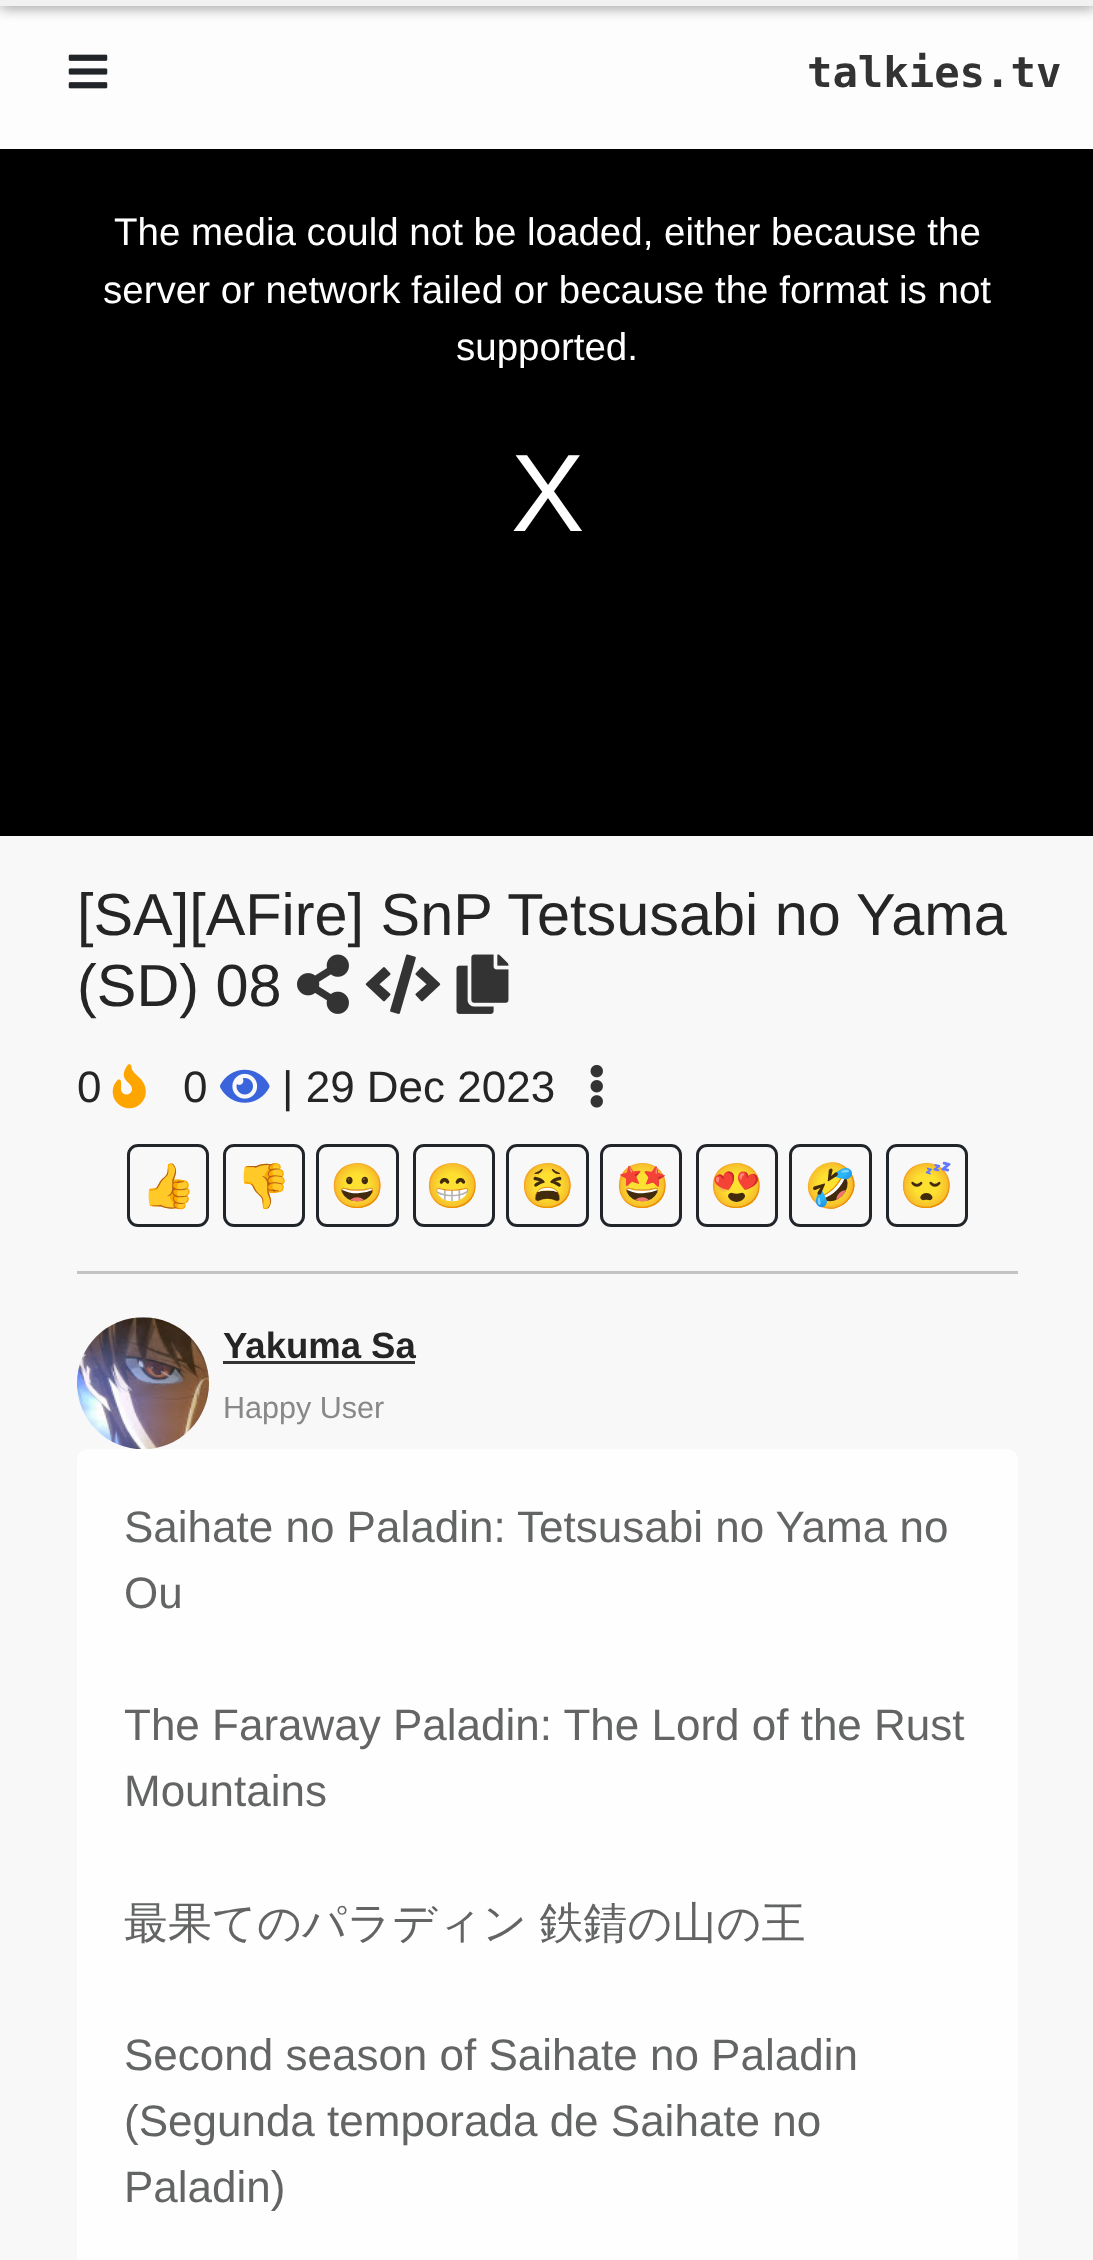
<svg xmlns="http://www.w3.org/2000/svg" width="1093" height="2260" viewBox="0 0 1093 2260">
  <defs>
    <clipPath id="clip1"><path d="M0 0H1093V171H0ZM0 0H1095V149H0Z" clip-rule="evenodd"/></clipPath>
  </defs>
  <rect width="100%" height="100%" fill="rgb(255,255,255)"/>
  <rect x="0" y="0" width="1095" height="6" fill="rgb(0,0,0)" filter="blur(7px)"/>
  <rect x="0" y="0" width="1093" height="6" fill="rgb(238,238,238)"/>
  <g clip-path="url(#clip1)">
    <rect x="0" y="0" width="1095" height="149" fill="rgba(0,0,0,0.2)" filter="blur(7px)"/>
  </g>
  <rect x="0" y="0" width="1093" height="149" fill="rgba(250,250,250,0.3)"/>
  <image x="68" y="54" width="40" height="35" href="pic1.png"/>
  <text x="807" y="87" font-family="DejaVu Sans Mono" font-size="42.25" font-weight="bold" fill="rgb(51,51,51)">talkies.tv</text>
  <rect x="0" y="836" width="1093" height="1424" fill="rgb(249,248,248)"/>
  <rect x="0" y="149" width="1093" height="687" fill="rgb(0,0,0)"/>
  <g font-family="Liberation Sans" font-size="38.5" fill="rgb(255,255,255)">
    <text x="114" y="245">The media could not be loaded, either because the</text>
    <text x="103" y="303">server or network failed or because the format is not</text>
    <text x="456" y="360">supported.</text>
  </g>
  <text x="511" y="531" font-family="Liberation Sans" font-size="110" fill="rgb(255,255,255)">X</text>
  <g font-family="Liberation Sans" font-size="59.4" fill="rgb(37,37,37)">
    <text>
      <tspan x="77" y="935">[SA][AFire] SnP Tetsusabi no Yama</tspan>
      <tspan x="77" y="1006">(SD) 08</tspan>
    </text>
  </g>
  <image x="297" y="954" width="52" height="60" href="pic2.png"/>
  <image x="365" y="954" width="76" height="60" href="pic3.png"/>
  <image x="456" y="954" width="53" height="60" href="pic4.png"/>
  <text x="77" y="1102" font-family="Liberation Sans" font-size="44" fill="rgb(37,37,37)">0</text>
  <image x="112" y="1064" width="34" height="45" href="pic5.png"/>
  <text x="183" y="1102" font-family="Liberation Sans" font-size="44" fill="rgb(37,37,37)">0</text>
  <image x="220" y="1069" width="50" height="34" href="pic6.png"/>
  <text x="282" y="1102" font-family="Liberation Sans" font-size="44" fill="rgb(37,37,37)">| 29 Dec 2023</text>
  <image x="590" y="1064" width="13" height="44" href="pic7.png"/>
  <rect x="128.5" y="1145.5" width="79" height="80" rx="9.5" fill="none" stroke="rgb(33,37,41)" stroke-width="3"/>
  <text x="141" y="1201" font-family="Noto Color Emoji" font-size="44" fill="rgb(0,0,0)">👍</text>
  <rect x="224.5" y="1145.5" width="79" height="80" rx="9.5" fill="none" stroke="rgb(33,37,41)" stroke-width="3"/>
  <text x="236" y="1201" font-family="Noto Color Emoji" font-size="44" fill="rgb(0,0,0)">👎</text>
  <rect x="317.5" y="1145.5" width="80" height="80" rx="9.5" fill="none" stroke="rgb(33,37,41)" stroke-width="3"/>
  <text x="330" y="1201" font-family="Noto Color Emoji" font-size="44" fill="rgb(0,0,0)">😀</text>
  <rect x="414.5" y="1145.5" width="79" height="80" rx="9.5" fill="none" stroke="rgb(33,37,41)" stroke-width="3"/>
  <text x="425" y="1201" font-family="Noto Color Emoji" font-size="44" fill="rgb(0,0,0)">😁</text>
  <rect x="507.5" y="1145.5" width="80" height="80" rx="9.5" fill="none" stroke="rgb(33,37,41)" stroke-width="3"/>
  <text x="520" y="1201" font-family="Noto Color Emoji" font-size="44" fill="rgb(0,0,0)">😫</text>
  <rect x="601.5" y="1145.5" width="79" height="80" rx="9.5" fill="none" stroke="rgb(33,37,41)" stroke-width="3"/>
  <text x="615" y="1201" font-family="Noto Color Emoji" font-size="44" fill="rgb(0,0,0)">🤩</text>
  <rect x="697.5" y="1145.5" width="79" height="80" rx="9.5" fill="none" stroke="rgb(33,37,41)" stroke-width="3"/>
  <text x="709" y="1201" font-family="Noto Color Emoji" font-size="44" fill="rgb(0,0,0)">😍</text>
  <rect x="790.5" y="1145.5" width="80" height="80" rx="9.5" fill="none" stroke="rgb(33,37,41)" stroke-width="3"/>
  <text x="804" y="1201" font-family="Noto Color Emoji" font-size="44" fill="rgb(0,0,0)">🤣</text>
  <rect x="887.5" y="1145.5" width="79" height="80" rx="9.5" fill="none" stroke="rgb(33,37,41)" stroke-width="3"/>
  <text x="899" y="1201" font-family="Noto Color Emoji" font-size="44" fill="rgb(0,0,0)">😴</text>
  <rect x="77" y="1271" width="941" height="3" fill="rgb(195,195,196)"/>
  <image x="77" y="1317" width="132" height="132" href="pic8.png"/>
  <text x="223" y="1358" font-family="Liberation Sans" font-size="36.5" font-weight="bold" fill="rgb(37,37,37)">Yakuma Sa</text>
  <rect x="223" y="1361" width="192" height="3" fill="rgb(51,51,51)"/>
  <text x="223" y="1418" font-family="Liberation Sans" font-size="30.5" fill="rgb(136,136,136)">Happy User</text>
  <rect x="77" y="1449" width="941" height="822" rx="11" fill="rgb(254,254,254)"/>
  <g font-family="Liberation Sans" font-size="44" fill="rgb(99,100,100)">
    <text>
      <tspan x="124" y="1542">Saihate no Paladin: Tetsusabi no Yama no</tspan>
      <tspan x="124" y="1608">Ou</tspan>
    </text>
    <text>
      <tspan x="124" y="1740">The Faraway Paladin: The Lord of the Rust</tspan>
      <tspan x="124" y="1806">Mountains</tspan>
    </text>
  </g>
  <text x="124" y="1938" word-spacing="-1" font-family="WenQuanYi Zen Hei" font-size="44" font-weight="500" fill="rgb(99,100,100)">最果てのパラディン 鉄錆の山の王</text>
  <g font-family="Liberation Sans" font-size="44" fill="rgb(99,100,100)">
    <text>
      <tspan x="124" y="2070">Second season of Saihate no Paladin</tspan>
      <tspan x="124" y="2136">(Segunda temporada de Saihate no</tspan>
      <tspan x="124" y="2202">Paladin)</tspan>
    </text>
  </g>
</svg>
